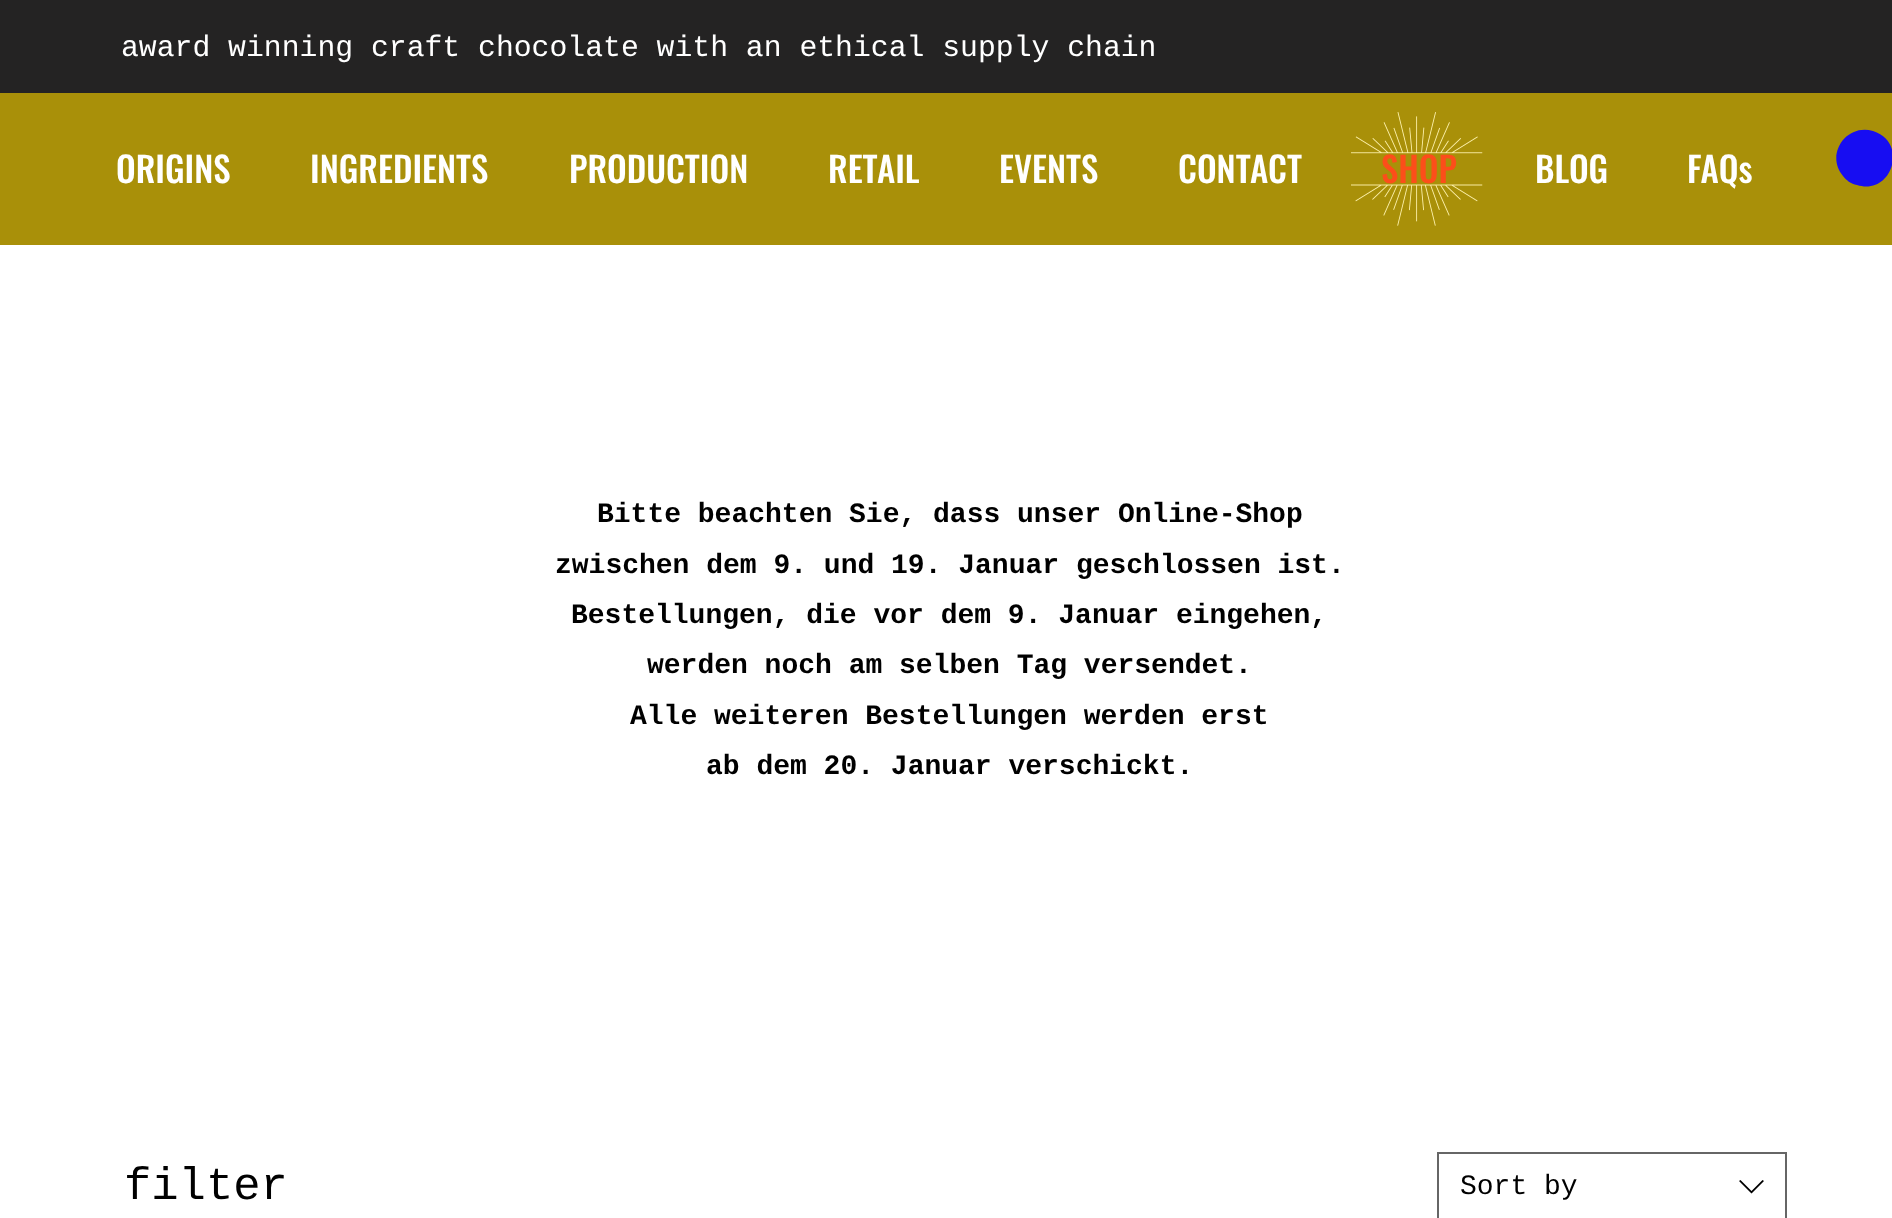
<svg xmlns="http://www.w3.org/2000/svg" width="1892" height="1218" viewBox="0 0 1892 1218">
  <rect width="100%" height="100%" fill="rgb(255,255,255)"/>
  <rect x="0" y="0" width="1892" height="93" fill="rgb(36,35,35)"/>
  <text x="121" y="56" font-family="Liberation Mono" font-size="29.75" fill="rgb(255,255,255)">award winning craft chocolate with an ethical supply chain</text>
  <rect x="0" y="93" width="1892" height="152" fill="rgb(169,144,9)"/>
  <image x="1351" y="112" width="132" height="114" href="pic1.png"/>
  <path d="M1873 131C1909 142 1892 196 1857 185C1851 184 1846 180 1843 176C1825 155 1846 123 1873 131Z" fill="rgb(23,13,242)"/>
  <g font-family="Oswald" font-size="35" font-weight="500" fill="rgb(255,255,255)">
    <text x="116" y="183">ORIGINS</text>
    <text x="310" y="183">INGREDIENTS</text>
    <text x="569" y="183">PRODUCTION</text>
    <text x="828" y="183">RETAIL</text>
    <text x="999" y="183">EVENTS</text>
    <text x="1178" y="183">CONTACT</text>
  </g>
  <text x="1381" y="183" font-family="Oswald" font-size="35" font-weight="500" fill="rgb(252,78,26)">SHOP</text>
  <g font-family="Oswald" font-size="35" font-weight="500" fill="rgb(255,255,255)">
    <text x="1535" y="183">BLOG</text>
    <text x="1687" y="183">FAQs</text>
  </g>
  <g font-family="Liberation Mono" font-size="28" font-weight="bold" fill="rgb(0,0,0)">
    <text x="597" y="522">Bitte beachten Sie, dass unser Online-Shop</text>
    <text x="555" y="573">zwischen dem 9. und 19. Januar geschlossen ist.</text>
    <text x="571" y="623">Bestellungen, die vor dem 9. Januar eingehen,</text>
    <text x="647" y="673">werden noch am selben Tag versendet.</text>
    <text x="630" y="724">Alle weiteren Bestellungen werden erst</text>
    <text x="706" y="774">ab dem 20. Januar verschickt.</text>
  </g>
  <text x="124" y="1199" font-family="Liberation Mono" font-size="45.5" fill="rgb(0,0,0)">filter</text>
  <rect x="1438" y="1153" width="348" height="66" fill="none" stroke="rgb(102,102,102)" stroke-width="2"/>
  <text x="1460" y="1194" font-family="Liberation Mono" font-size="28" fill="rgb(0,0,0)">Sort by</text>
  <path d="M1762.5 1180L1764 1181L1751.5 1193.5L1739 1181L1740.5 1180L1751.5 1191Z" fill="rgb(0,0,0)" fill-rule="evenodd"/>
</svg>
